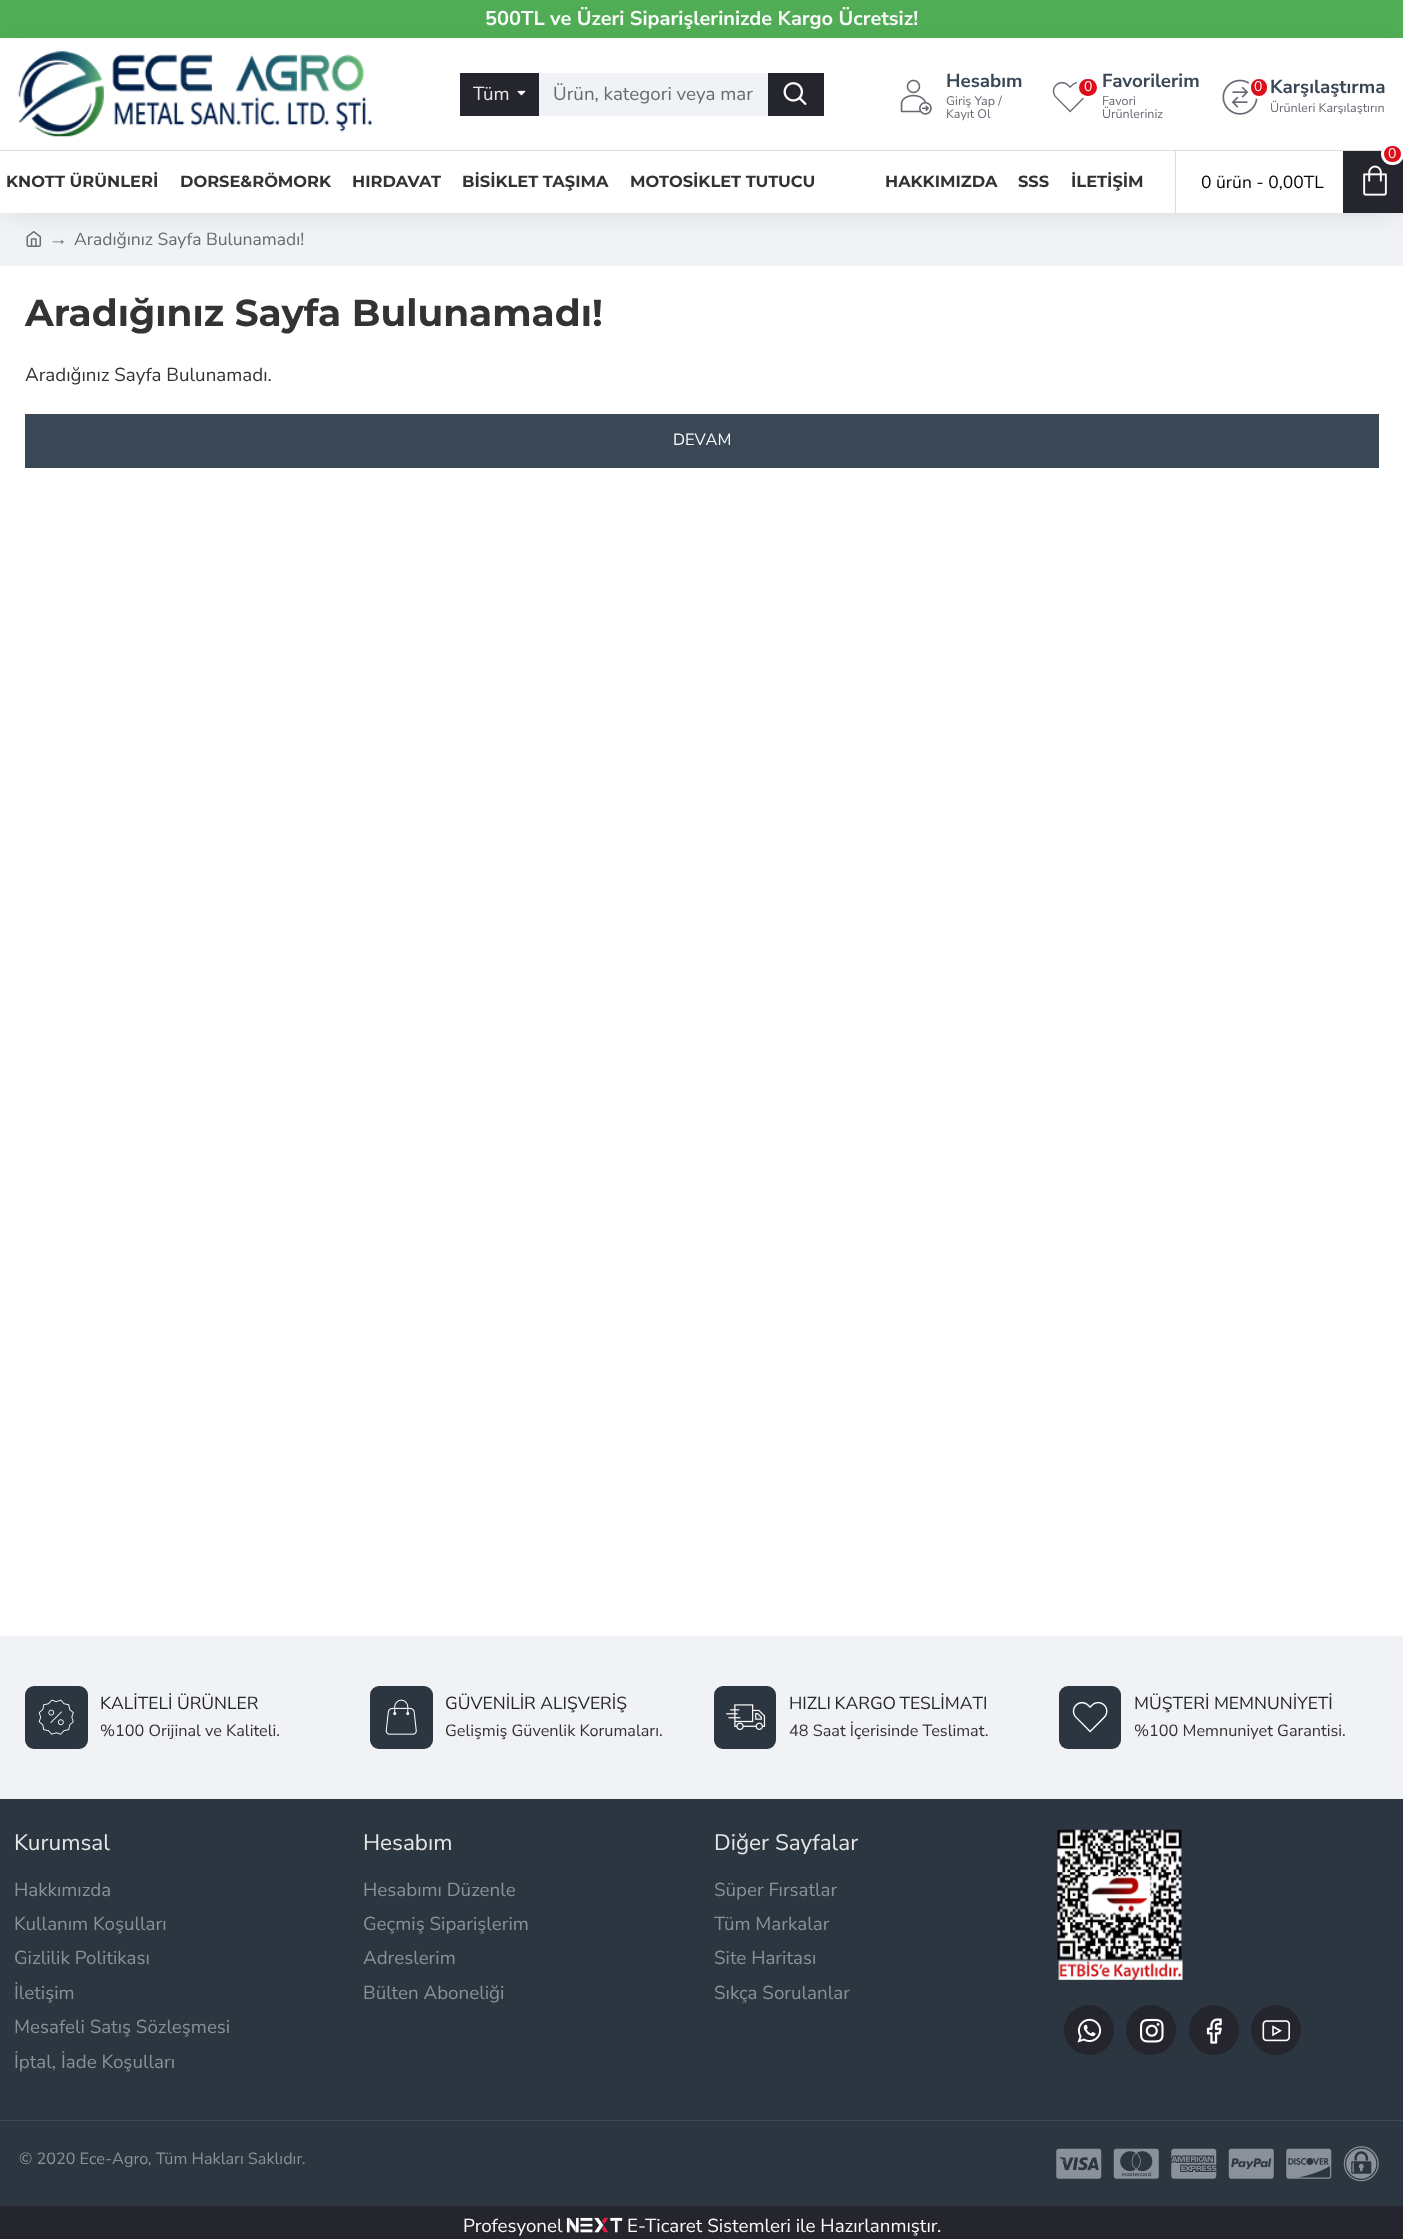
<svg xmlns="http://www.w3.org/2000/svg" width="1403" height="2239" viewBox="0 0 1403 2239">
  <defs>
    <clipPath id="clip1"><rect x="1270" y="74" width="115" height="40"/></clipPath>
  </defs>
  <rect width="100%" height="100%" fill="rgb(255,255,255)"/>
  <rect x="0" y="0" width="1403" height="38" fill="rgb(80,173,85)"/>
  <text x="485" y="25" font-family="Nunito Sans" font-size="20" font-weight="bold" fill="rgb(250,250,250)">500TL ve Üzeri Siparişlerinizde Kargo Ücretsiz!</text>
  <rect x="0" y="213" width="1403" height="53" fill="rgb(240,242,245)"/>
  <image x="26" y="231" width="16" height="16" href="pic8.png"/>
  <rect x="6" y="50" width="1392" height="163" fill="rgba(0,0,0,0.1)" filter="blur(12.5px)"/>
  <rect x="0" y="38" width="1403" height="175" fill="rgb(255,255,255)"/>
  <image x="18" y="51" width="354" height="86" href="pic1.png"/>
  <rect x="460" y="73" width="79" height="43" fill="rgb(37,37,45)"/>
  <text x="473" y="100" font-family="Nunito Sans" font-size="18.75" fill="rgb(230,230,230)">Tüm</text>
  <image x="517" y="90" width="9" height="6" href="pic2.png"/>
  <rect x="539" y="73" width="229" height="43" fill="rgb(240,242,245)"/>
  <text x="553" y="100" font-family="Nunito Sans" font-size="18.75" fill="rgb(105,105,115)">Ürün, kategori veya mar</text>
  <rect x="768" y="73" width="56" height="43" fill="rgb(37,37,45)"/>
  <image x="783" y="82" width="24" height="23" href="pic3.png"/>
  <image x="900" y="79" width="32" height="36" href="pic4.png"/>
  <text x="946" y="87" font-family="Nunito Sans" font-size="18.75" font-weight="bold" fill="rgb(58,71,84)">Hesabım</text>
  <g font-family="Nunito Sans" font-size="12.5" fill="rgb(105,105,115)">
    <text>
      <tspan x="946" y="105">Giriş Yap /</tspan>
      <tspan x="946" y="118">Kayıt Ol</tspan>
    </text>
  </g>
  <image x="1052" y="81" width="33" height="32" href="pic5.png"/>
  <rect x="1077.5" y="77.5" width="21" height="20" rx="10" fill="rgb(221,14,28)" stroke="rgb(255,255,255)" stroke-width="3"/>
  <text x="1084" y="91" font-family="Nunito Sans" font-size="14" fill="rgb(250,250,250)">0</text>
  <text x="1102" y="87" font-family="Nunito Sans" font-size="18.75" font-weight="bold" fill="rgb(58,71,84)">Favorilerim</text>
  <g font-family="Nunito Sans" font-size="12.5" fill="rgb(105,105,115)">
    <text>
      <tspan x="1102" y="105">Favori</tspan>
      <tspan x="1102" y="118">Ürünleriniz</tspan>
    </text>
  </g>
  <image x="1222" y="79" width="36" height="36" href="pic6.png"/>
  <rect x="1249.5" y="77.5" width="19" height="20" rx="9.5" fill="rgb(221,14,28)" stroke="rgb(255,255,255)" stroke-width="3"/>
  <text x="1254" y="91" font-family="Nunito Sans" font-size="14" fill="rgb(250,250,250)">0</text>
  <text x="1270" y="93" font-family="Nunito Sans" font-size="18.75" font-weight="bold" fill="rgb(58,71,84)">Karşılaştırma</text>
  <g clip-path="url(#clip1)">
    <text x="1270" y="112" font-family="Nunito Sans" font-size="12.5" fill="rgb(105,105,115)">Ürünleri Karşılaştırın</text>
  </g>
  <rect x="0" y="150" width="1382" height="1" fill="rgb(221,221,221)"/>
  <rect x="1175" y="150" width="1" height="63" fill="rgb(221,221,221)"/>
  <rect x="1343" y="151" width="60" height="62" fill="rgb(37,37,45)"/>
  <rect x="1382.5" y="144.5" width="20" height="19" rx="9.5" fill="rgb(221,14,28)" stroke="rgb(255,255,255)" stroke-width="3"/>
  <text x="1388" y="158" font-family="Nunito Sans" font-size="14" fill="rgb(250,250,250)">0</text>
  <text x="1201" y="188" font-family="Nunito Sans" font-size="17.5" fill="rgb(0,0,0)">0 ürün - 0,00TL</text>
  <image x="1363" y="165" width="24" height="31" href="pic7.png"/>
  <g font-family="Montserrat" font-size="16.25" font-weight="bold" fill="rgb(51,51,51)">
    <text x="6" y="187">KNOTT ÜRÜNLERİ</text>
    <text x="180" y="187">DORSE&amp;RÖMORK</text>
    <text x="352" y="187">HIRDAVAT</text>
    <text x="462" y="187">BİSİKLET TAŞIMA</text>
    <text x="630" y="187">MOTOSİKLET TUTUCU</text>
    <text x="885" y="187">HAKKIMIZDA</text>
    <text x="1018" y="187">SSS</text>
    <text x="1071" y="187">İLETİŞİM</text>
  </g>
  <text x="49" y="245" font-family="Liberation Serif" font-size="18.75" fill="rgb(105,105,115)">→</text>
  <text x="74" y="245" font-family="Nunito Sans" font-size="17.5" fill="rgb(105,105,115)">Aradığınız Sayfa Bulunamadı!</text>
  <text x="25" y="326" font-family="Montserrat" font-size="37.5" font-weight="bold" fill="rgb(51,51,51)">Aradığınız Sayfa Bulunamadı!</text>
  <text x="25" y="381" font-family="Nunito Sans" font-size="18.75" fill="rgb(51,51,51)">Aradığınız Sayfa Bulunamadı.</text>
  <rect x="25" y="414" width="1354" height="54" fill="rgb(58,71,84)"/>
  <text x="673" y="445" font-family="Nunito Sans" font-size="16.25" fill="rgb(250,250,250)">DEVAM</text>
  <rect x="0" y="1799" width="1403" height="407" fill="rgb(44,54,64)"/>
  <rect x="0" y="1636" width="1403" height="163" fill="rgb(240,242,245)"/>
  <rect x="25" y="1686" width="63" height="63" rx="9" fill="rgb(44,54,64)"/>
  <image x="38" y="1699" width="36" height="36" href="pic9.png"/>
  <text x="100" y="1709" font-family="Nunito Sans" font-size="17.5" fill="rgb(37,37,45)">KALİTELİ ÜRÜNLER</text>
  <text x="100" y="1736" font-family="Nunito Sans" font-size="16.25" fill="rgb(51,51,51)">%100 Orijinal ve Kaliteli.</text>
  <rect x="370" y="1686" width="63" height="63" rx="9" fill="rgb(44,54,64)"/>
  <image x="385" y="1699" width="32" height="36" href="pic10.png"/>
  <text x="445" y="1709" font-family="Nunito Sans" font-size="17.5" fill="rgb(37,37,45)">GÜVENİLİR ALIŞVERİŞ</text>
  <text x="445" y="1736" font-family="Nunito Sans" font-size="16.25" fill="rgb(51,51,51)">Gelişmiş Güvenlik Korumaları.</text>
  <rect x="714" y="1686" width="62" height="63" rx="9" fill="rgb(44,54,64)"/>
  <image x="726" y="1704" width="40" height="26" href="pic11.png"/>
  <text x="789" y="1709" word-spacing="-1" font-family="Nunito Sans" font-size="17.5" fill="rgb(37,37,45)">HIZLI KARGO TESLİMATI</text>
  <text x="789" y="1736" font-family="Nunito Sans" font-size="16.25" fill="rgb(51,51,51)">48 Saat İçerisinde Teslimat.</text>
  <rect x="1059" y="1686" width="62" height="63" rx="9" fill="rgb(44,54,64)"/>
  <image x="1072" y="1701" width="36" height="32" href="pic12.png"/>
  <text x="1134" y="1709" font-family="Nunito Sans" font-size="17.5" fill="rgb(37,37,45)">MÜŞTERİ MEMNUNİYETİ</text>
  <text x="1134" y="1736" font-family="Nunito Sans" font-size="16.25" fill="rgb(51,51,51)">%100 Memnuniyet Garantisi.</text>
  <text x="14" y="1850" font-family="Nunito Sans" font-size="22.5" fill="rgb(230,230,230)">Kurumsal</text>
  <g font-family="Nunito Sans" font-size="18.75" fill="rgb(139,145,152)">
    <text>
      <tspan x="14" y="1896">Hakkımızda</tspan>
      <tspan x="14" y="1930">Kullanım Koşulları</tspan>
      <tspan x="14" y="1964">Gizlilik Politikası</tspan>
      <tspan x="14" y="1999">İletişim</tspan>
      <tspan x="14" y="2033">Mesafeli Satış Sözleşmesi</tspan>
      <tspan x="14" y="2068">İptal, İade Koşulları</tspan>
    </text>
  </g>
  <text x="363" y="1850" font-family="Nunito Sans" font-size="22.5" fill="rgb(230,230,230)">Hesabım</text>
  <g font-family="Nunito Sans" font-size="18.75" fill="rgb(139,145,152)">
    <text>
      <tspan x="363" y="1896">Hesabımı Düzenle</tspan>
      <tspan x="363" y="1930">Geçmiş Siparişlerim</tspan>
      <tspan x="363" y="1964">Adreslerim</tspan>
      <tspan x="363" y="1999">Bülten Aboneliği</tspan>
    </text>
  </g>
  <text x="714" y="1850" font-family="Nunito Sans" font-size="22.5" fill="rgb(230,230,230)">Diğer Sayfalar</text>
  <g font-family="Nunito Sans" font-size="18.75" fill="rgb(139,145,152)">
    <text>
      <tspan x="714" y="1896">Süper Fırsatlar</tspan>
      <tspan x="714" y="1930">Tüm Markalar</tspan>
      <tspan x="714" y="1964">Site Haritası</tspan>
      <tspan x="714" y="1999">Sıkça Sorulanlar</tspan>
    </text>
  </g>
  <image x="1057" y="1829" width="126" height="151" href="pic13.png"/>
  <circle cx="1089" cy="2030" r="25" fill="rgb(37,37,45)"/>
  <image x="1077" y="2018" width="25" height="25" href="pic14.png"/>
  <circle cx="1151" cy="2030" r="25" fill="rgb(37,37,45)"/>
  <image x="1140" y="2018" width="24" height="25" href="pic15.png"/>
  <circle cx="1214" cy="2030" r="25" fill="rgb(37,37,45)"/>
  <image x="1206" y="2018" width="16" height="26" href="pic16.png"/>
  <circle cx="1276" cy="2030" r="25" fill="rgb(37,37,45)"/>
  <image x="1262" y="2020" width="28" height="22" href="pic17.png"/>
  <rect x="0" y="2120" width="1403" height="1" fill="rgb(58,71,84)"/>
  <text x="19" y="2164" font-family="Nunito Sans" font-size="16.25" fill="rgb(139,145,152)">© 2020 Ece-Agro, Tüm Hakları Saklıdır.</text>
  <image x="1056" y="2148" width="46" height="31" href="pic18.png"/>
  <image x="1113" y="2148" width="46" height="31" href="pic19.png"/>
  <image x="1171" y="2148" width="46" height="31" href="pic20.png"/>
  <image x="1228" y="2148" width="46" height="31" href="pic21.png"/>
  <image x="1286" y="2148" width="46" height="31" href="pic22.png"/>
  <image x="1343" y="2146" width="36" height="36" href="pic23.png"/>
  <rect x="0" y="2206" width="1403" height="33" fill="rgb(37,37,45)"/>
  <text x="463" y="2232" font-family="Nunito Sans" font-size="18.75" fill="rgb(250,250,250)">Profesyonel</text>
  <image x="566" y="2217" width="57" height="16" href="pic24.png"/>
  <text x="627" y="2232" font-family="Nunito Sans" font-size="18.75" fill="rgb(250,250,250)">E-Ticaret Sistemleri ile Hazırlanmıştır.</text>
</svg>
